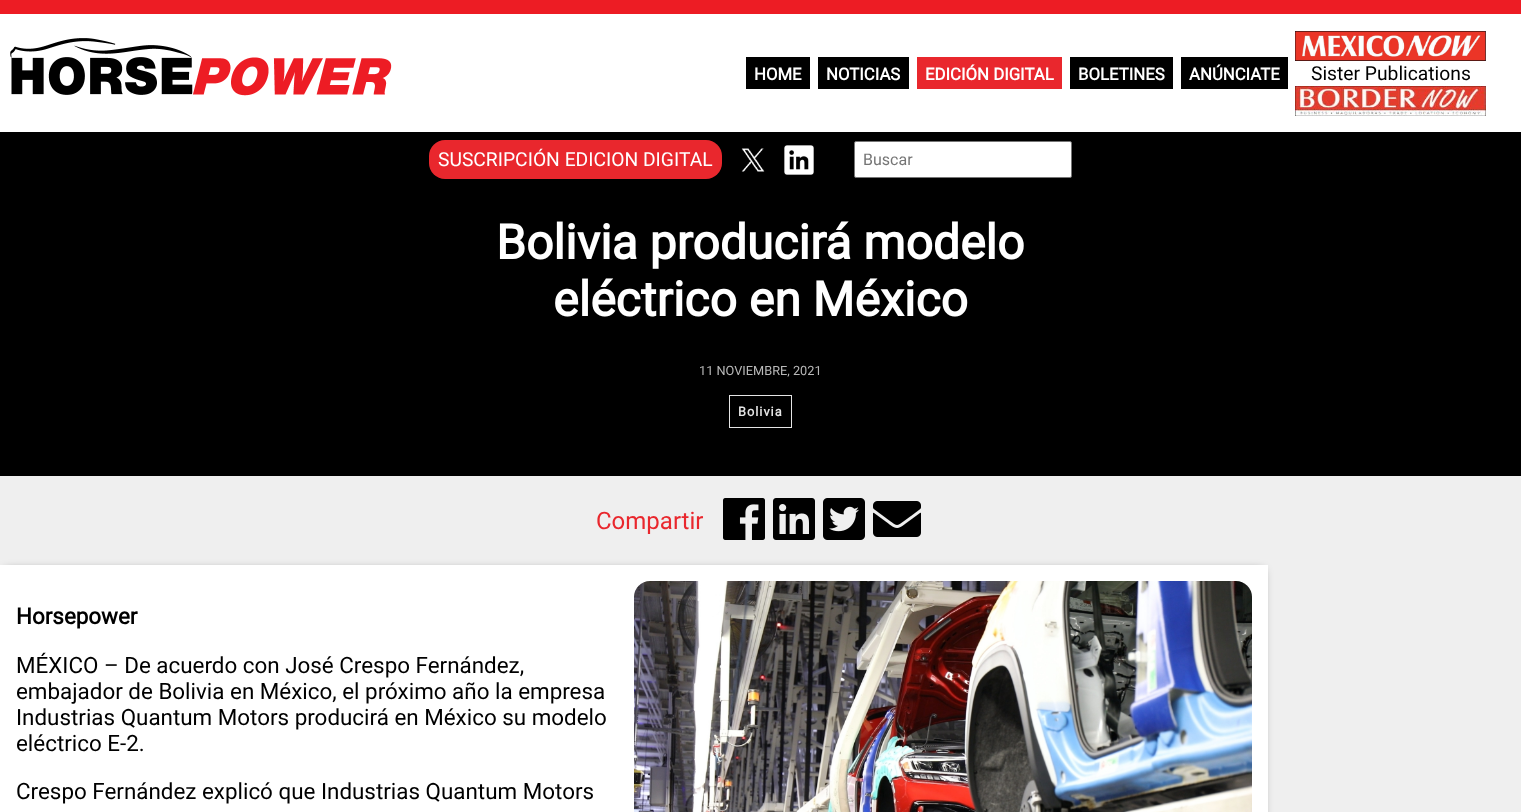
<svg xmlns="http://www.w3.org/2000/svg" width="1521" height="812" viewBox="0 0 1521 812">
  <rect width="100%" height="100%" fill="rgb(239,239,239)"/>
  <rect x="0" y="14" width="1521" height="118" fill="rgb(255,255,255)"/>
  <rect x="0" y="0" width="1521" height="14" fill="rgb(237,28,36)"/>
  <image x="10" y="38" width="382" height="58" href="pic1.png"/>
  <rect x="746" y="57" width="64" height="32" fill="rgb(0,0,0)"/>
  <text x="754" y="80" font-family="Roboto" font-size="16.75" font-weight="bold" fill="rgb(255,255,255)">HOME</text>
  <rect x="818" y="57" width="91" height="32" fill="rgb(0,0,0)"/>
  <text x="826" y="80" font-family="Roboto" font-size="16.75" font-weight="bold" fill="rgb(255,255,255)">NOTICIAS</text>
  <rect x="917" y="57" width="145" height="32" fill="rgb(233,39,45)"/>
  <text x="925" y="80" font-family="Roboto" font-size="16.75" font-weight="bold" fill="rgb(255,255,255)">EDICIÓN DIGITAL</text>
  <rect x="1070" y="57" width="103" height="32" fill="rgb(0,0,0)"/>
  <text x="1078" y="80" font-family="Roboto" font-size="16.75" font-weight="bold" fill="rgb(255,255,255)">BOLETINES</text>
  <rect x="1181" y="57" width="107" height="32" fill="rgb(0,0,0)"/>
  <text x="1189" y="80" font-family="Roboto" font-size="16.75" font-weight="bold" fill="rgb(255,255,255)">ANÚNCIATE</text>
  <image x="1295" y="31" width="191" height="30" href="pic2.png"/>
  <text x="1311" y="80" font-family="Roboto" font-size="19.25" fill="rgb(0,0,0)">Sister Publications</text>
  <image x="1295" y="86" width="191" height="30" href="pic3.png"/>
  <rect x="0" y="132" width="1521" height="344" fill="rgb(0,0,0)"/>
  <rect x="429" y="140" width="293" height="39" rx="16" fill="rgb(233,39,45)"/>
  <text x="438" y="166" font-family="Roboto" font-size="19.25" fill="rgb(255,255,255)">SUSCRIPCIÓN EDICION DIGITAL</text>
  <image x="741" y="148" width="24" height="24" href="pic4.png"/>
  <image x="784" y="145" width="30" height="30" href="pic5.png"/>
  <rect x="854.5" y="141.5" width="217" height="36" rx="1.5" fill="rgb(255,255,255)" stroke="rgb(118,118,118)"/>
  <text x="863" y="165" font-family="Roboto" font-size="16" fill="rgb(117,117,117)">Buscar</text>
  <g font-family="Roboto" font-size="48" font-weight="bold" fill="rgb(255,255,255)">
    <text x="496" y="259">Bolivia producirá modelo</text>
    <text x="553" y="316">eléctrico en México</text>
  </g>
  <text x="699" y="375" font-family="Roboto" font-size="12.75" fill="rgb(184,184,184)">11 NOVIEMBRE, 2021</text>
  <rect x="729.5" y="395.5" width="62" height="32" fill="none" stroke="rgb(229,229,229)"/>
  <text x="738" y="416" font-family="Roboto" font-size="12.75" font-weight="bold" letter-spacing="1" fill="rgb(229,229,229)">Bolivia</text>
  <text x="596" y="529" font-family="Roboto" font-size="24" fill="rgb(233,39,45)">Compartir</text>
  <image x="723" y="498" width="42" height="42" href="pic6.png"/>
  <image x="773" y="498" width="42" height="42" href="pic7.png"/>
  <image x="823" y="498" width="42" height="42" href="pic8.png"/>
  <image x="873" y="501" width="48" height="36" href="pic9.png"/>
  <rect x="5" y="570" width="1258" height="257" fill="rgba(0,0,0,0.5)" filter="blur(5px)"/>
  <rect x="0" y="565" width="1268" height="247" fill="rgb(255,255,255)"/>
  <text x="16" y="624" font-family="Roboto" font-size="22.4" font-weight="bold" fill="rgb(0,0,0)">Horsepower</text>
  <image x="634" y="581" width="618" height="231" href="pic10.png"/>
  <g font-family="Roboto" font-size="22.4" fill="rgb(0,0,0)">
    <text>
      <tspan x="16" y="673">MÉXICO – De acuerdo con José Crespo Fernández,</tspan>
      <tspan x="16" y="699">embajador de Bolivia en México, el próximo año la empresa</tspan>
      <tspan x="16" y="725">Industrias Quantum Motors producirá en México su modelo</tspan>
      <tspan x="16" y="751">eléctrico E-2.</tspan>
    </text>
    <text x="16" y="799">Crespo Fernández explicó que Industrias Quantum Motors</text>
  </g>
</svg>
